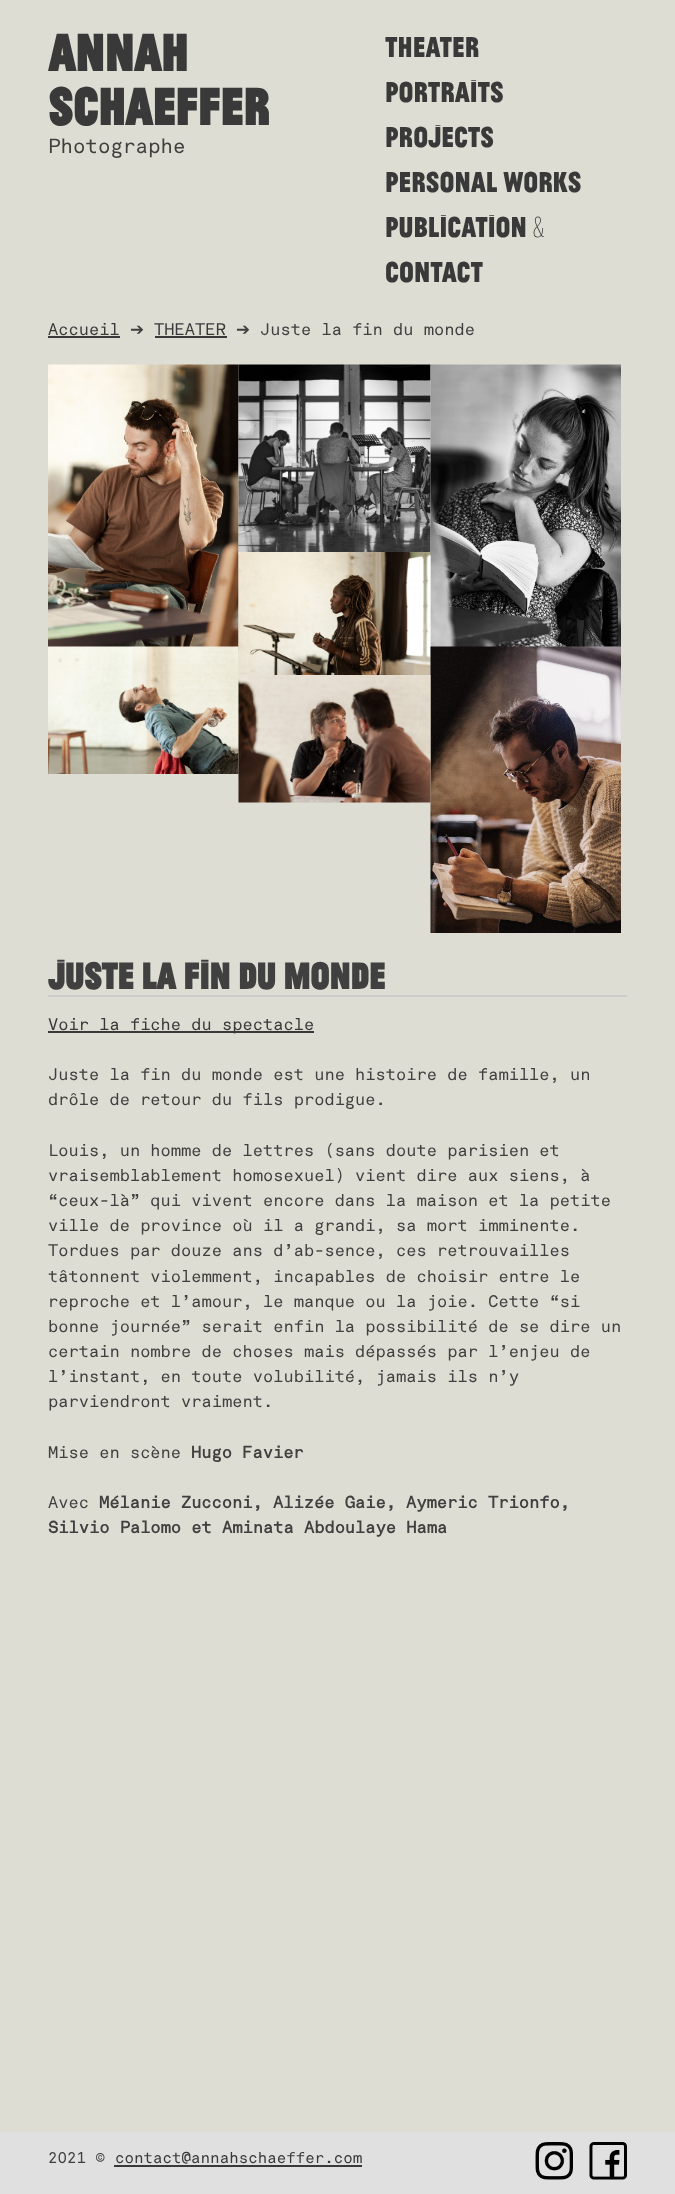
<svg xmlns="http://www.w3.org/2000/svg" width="675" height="2194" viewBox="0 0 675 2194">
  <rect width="100%" height="100%" fill="rgb(221,221,212)"/>
  <g font-family="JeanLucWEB" font-size="54" font-weight="bold" fill="rgb(57,57,57)">
    <text>
      <tspan x="48" y="71">Annah</tspan>
      <tspan x="48" y="125">Schaeffer</tspan>
    </text>
  </g>
  <text x="48" y="153" font-family="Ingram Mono" font-size="20.5" fill="rgb(64,64,64)">Photographe</text>
  <g font-family="JeanLucWEB" font-size="30" font-weight="100" fill="rgb(57,57,57)">
    <text>
      <tspan x="385" y="57">THEATER</tspan>
      <tspan x="385" y="102">Portraits</tspan>
      <tspan x="385" y="147">PROJECTS</tspan>
      <tspan x="385" y="192">PERSONAL WORKS</tspan>
      <tspan x="385" y="237">Publication &amp;</tspan>
      <tspan x="385" y="282">contact</tspan>
    </text>
  </g>
  <text x="48" y="335" font-family="Ingram Mono" font-size="16.8" fill="rgb(57,57,57)">Accueil</text>
  <rect x="48" y="336" width="72" height="2" fill="rgb(57,57,57)"/>
  <text x="130" y="335" font-family="DejaVu Sans" font-size="16.8" fill="rgb(64,64,64)">➔</text>
  <text x="154" y="335" font-family="Ingram Mono" font-size="16.8" fill="rgb(57,57,57)">THEATER</text>
  <rect x="155" y="336" width="72" height="2" fill="rgb(57,57,57)"/>
  <text x="236" y="335" font-family="DejaVu Sans" font-size="16.8" fill="rgb(64,64,64)">➔</text>
  <text x="260" y="335" font-family="Ingram Mono" font-size="16.8" fill="rgb(64,64,64)">Juste la fin du monde</text>
  <image x="48" y="364" width="191" height="287" href="pic1.png"/>
  <image x="238" y="364" width="193" height="191" href="pic2.png"/>
  <image x="430" y="364" width="191" height="287" href="pic3.png"/>
  <image x="238" y="552" width="193" height="128" href="pic4.png"/>
  <image x="48" y="646" width="191" height="128" href="pic5.png"/>
  <image x="430" y="646" width="191" height="287" href="pic7.png"/>
  <image x="238" y="675" width="193" height="128" href="pic6.png"/>
  <text x="48" y="989" font-family="JeanLucWEB" font-size="38.5" font-weight="bold" fill="rgb(64,64,64)">Juste la fin du monde</text>
  <rect x="48" y="995" width="579" height="2" fill="rgb(204,204,204)"/>
  <rect x="48" y="1031" width="266" height="2" fill="rgb(57,57,57)"/>
  <text x="48" y="1030" font-family="Ingram Mono" font-size="16.8" fill="rgb(57,57,57)">Voir la fiche du spectacle</text>
  <g font-family="Ingram Mono" font-size="16.8" fill="rgb(64,64,64)">
    <text>
      <tspan x="48" y="1080">Juste la fin du monde est une histoire de famille, un</tspan>
      <tspan x="48" y="1105">drôle de retour du fils prodigue.</tspan>
    </text>
    <text>
      <tspan x="48" y="1156">Louis, un homme de lettres (sans doute parisien et</tspan>
      <tspan x="48" y="1181">vraisemblablement homosexuel) vient dire aux siens, à</tspan>
      <tspan x="48" y="1206">“ceux-là” qui vivent encore dans la maison et la petite</tspan>
      <tspan x="48" y="1231">ville de province où il a grandi, sa mort imminente.</tspan>
      <tspan x="48" y="1256">Tordues par douze ans d’ab-sence, ces retrouvailles</tspan>
      <tspan x="48" y="1282">tâtonnent violemment, incapables de choisir entre le</tspan>
      <tspan x="48" y="1307">reproche et l’amour, le manque ou la joie. Cette “si</tspan>
      <tspan x="48" y="1332">bonne journée” serait enfin la possibilité de se dire un</tspan>
      <tspan x="48" y="1357">certain nombre de choses mais dépassés par l’enjeu de</tspan>
      <tspan x="48" y="1382">l’instant, en toute volubilité, jamais ils n’y</tspan>
      <tspan x="48" y="1407">parviendront vraiment.</tspan>
    </text>
    <text x="48" y="1458">Mise en scène</text>
  </g>
  <text x="191" y="1458" font-family="Ingram Mono" font-size="16.8" font-weight="bold" fill="rgb(64,64,64)">Hugo Favier</text>
  <text x="48" y="1508" font-family="Ingram Mono" font-size="16.8" fill="rgb(64,64,64)">Avec</text>
  <g font-family="Ingram Mono" font-size="16.8" font-weight="bold" fill="rgb(64,64,64)">
    <text x="99" y="1508">Mélanie Zucconi, Alizée Gaie, Aymeric Trionfo,</text>
    <text x="48" y="1533">Silvio Palomo et Aminata Abdoulaye Hama</text>
  </g>
  <rect x="0" y="2132" width="675" height="62" fill="rgb(224,224,224)"/>
  <text x="48" y="2163" font-family="Ingram Mono" font-size="15.6" fill="rgb(64,64,64)">2021 ©</text>
  <text x="115" y="2163" font-family="Ingram Mono" font-size="15.6" fill="rgb(57,57,57)">contact@annahschaeffer.com</text>
  <rect x="114" y="2165" width="248" height="2" fill="rgb(57,57,57)"/>
  <image x="535" y="2142" width="38" height="38" href="pic8.png"/>
  <image x="589" y="2142" width="38" height="38" href="pic9.png"/>
</svg>
